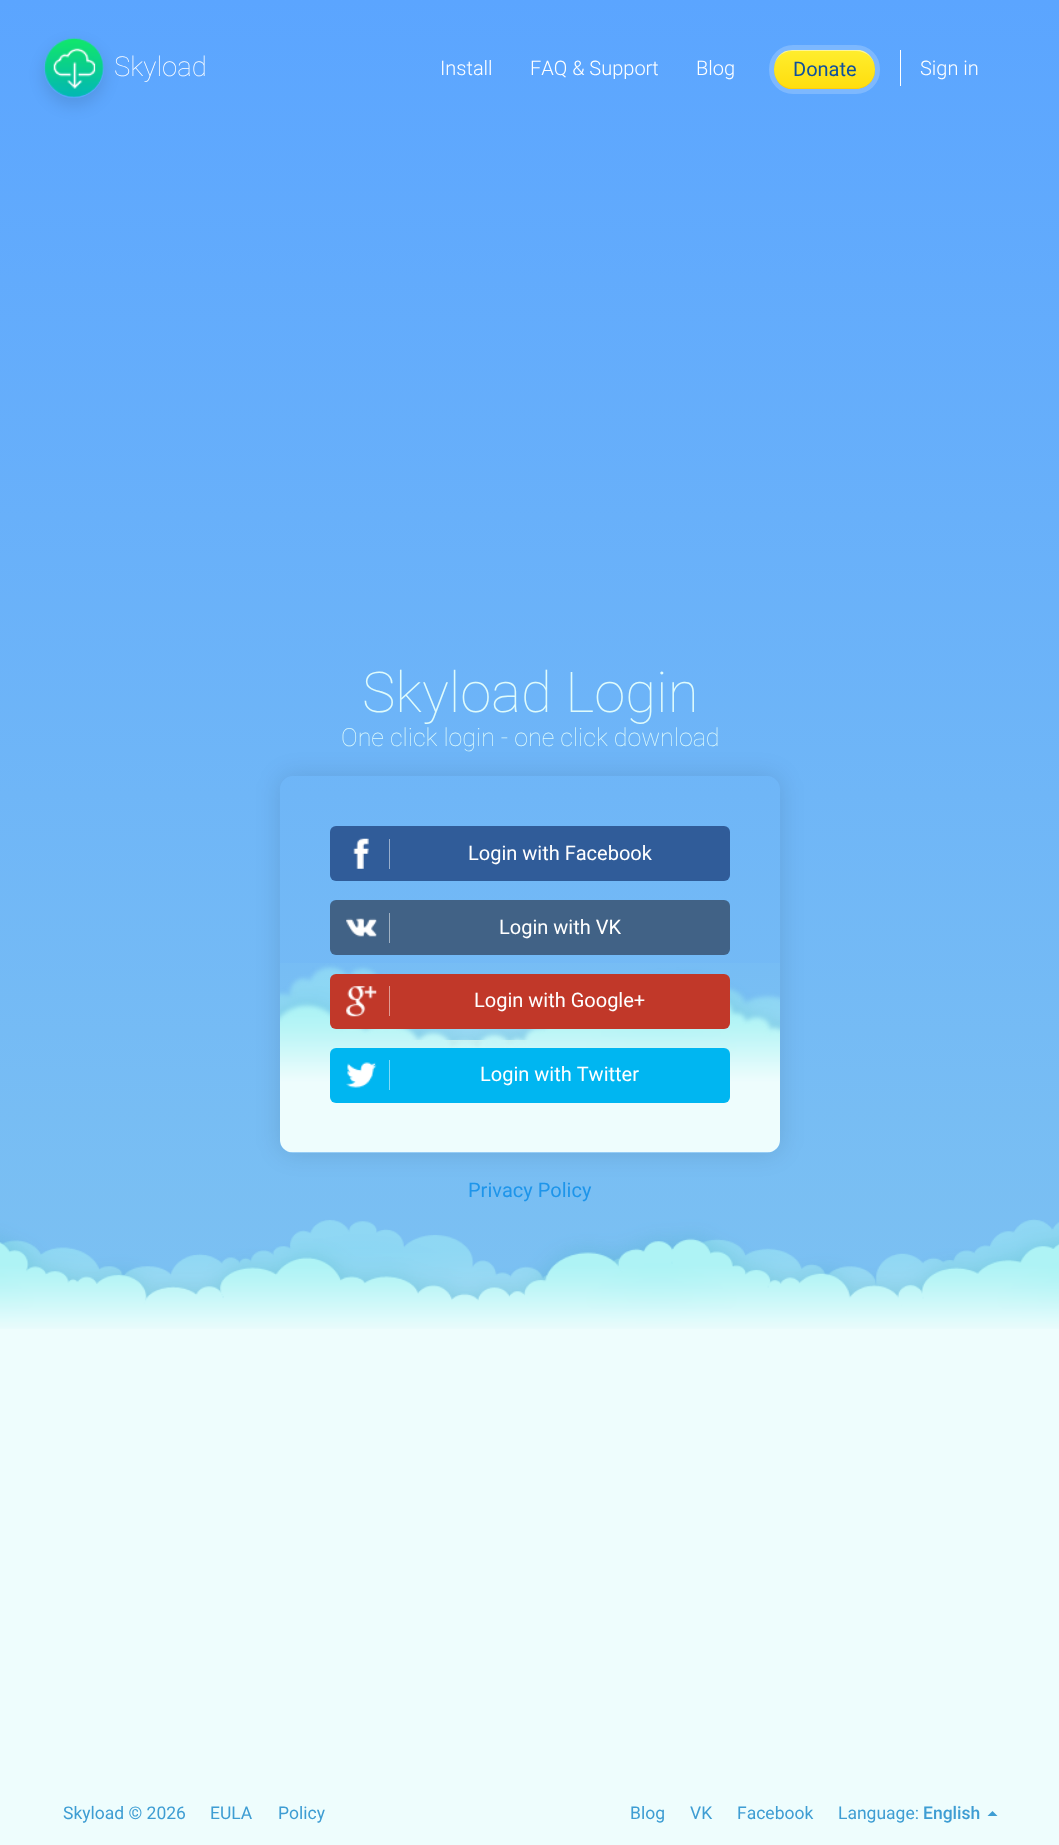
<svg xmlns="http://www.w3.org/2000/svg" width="1059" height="1845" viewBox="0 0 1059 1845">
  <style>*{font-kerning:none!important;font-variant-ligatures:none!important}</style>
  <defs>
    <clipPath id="clip1"><path d="M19 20H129V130H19ZM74 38C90.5 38 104 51.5 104 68C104 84.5 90.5 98 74 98C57.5 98 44 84.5 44 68C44 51.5 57.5 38 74 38Z" clip-rule="evenodd"/></clipPath>
    <clipPath id="clip2"><rect x="774" y="50" width="101" height="39" rx="19"/></clipPath>
    <linearGradient id="g1" gradientUnits="userSpaceOnUse" x1="824" y1="51" x2="824" y2="88"><stop offset="0" stop-color="rgb(255,237,45)"/><stop offset="1" stop-color="rgb(255,222,14)"/></linearGradient>
    <linearGradient id="g2" gradientUnits="userSpaceOnUse" x1="824" y1="88" x2="824" y2="124"><stop offset="0" stop-color="rgb(255,237,45)"/><stop offset="1" stop-color="rgb(255,222,14)"/></linearGradient>
    <clipPath id="clip3"><path d="M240 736H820V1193H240ZM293 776H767C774 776 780 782 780 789V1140C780 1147 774 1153 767 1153H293C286 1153 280 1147 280 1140V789C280 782 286 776 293 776Z" clip-rule="evenodd"/></clipPath>
  </defs>
  <rect width="100%" height="100%" fill="rgb(238,253,253)"/>
  <image x="0" y="0" width="1059" height="1329" href="pic1.png"/>
  <g clip-path="url(#clip1)">
    <rect x="43" y="44" width="62" height="62" rx="31" fill="rgba(0,0,0,0.1)" filter="blur(7.5px)"/>
  </g>
  <image x="44" y="37" width="60" height="61" href="pic2.png"/>
  <text x="114" y="76" font-family="Roboto" font-size="27.5" font-weight="100" fill="rgb(255,255,255)">Skyload</text>
  <g font-family="Roboto" font-size="20" font-weight="300" fill="rgb(255,255,255)">
    <text x="440" y="75">Install</text>
    <text x="530" y="75">FAQ &amp; Support</text>
    <text x="696" y="75">Blog</text>
  </g>
  <rect x="771.5" y="47.5" width="106" height="44" rx="21.5" fill="none" stroke="rgb(125,184,254)" stroke-width="5"/>
  <g clip-path="url(#clip2)">
    <rect x="774" y="51" width="101" height="37" fill="url(#g1)"/>
    <rect x="787" y="88" width="75" height="1" fill="url(#g2)"/>
  </g>
  <path d="M792 50C781 50 774 59 774 69C774 59 782 51 792 51H856C867 51 875 59 875 69C875 60 869 52 860 50Z" fill="rgb(255,246,150)"/>
  <path d="M789 89C780 87 774 79 774 69V70C774 80 782 88 792 88H856C867 88 875 80 875 70V73C874 79 870 84 864 87L858 89Z" fill="rgb(255,206,6)"/>
  <text x="793" y="76" font-family="Roboto" font-size="20" fill="rgb(14,80,158)">Donate</text>
  <rect x="900" y="50" width="1" height="36" fill="rgb(255,255,255)"/>
  <text x="920" y="75" font-family="Roboto" font-size="20" font-weight="300" fill="rgb(255,255,255)">Sign in</text>
  <text x="362" y="712" font-family="Roboto" font-size="56.25" font-weight="100" fill="rgb(223,251,251)">Skyload Login</text>
  <text x="341" y="746" font-family="Roboto" font-size="25" font-weight="100" fill="rgb(223,251,251)">One click login - one click download</text>
  <g clip-path="url(#clip3)">
    <rect x="279" y="775" width="502" height="379" rx="14" fill="rgba(0,0,0,0.1)" filter="blur(12.5px)"/>
  </g>
  <image x="280" y="963" width="500" height="190" href="pic3.png"/>
  <rect x="330" y="826" width="400" height="55" rx="6" fill="rgb(48,92,153)"/>
  <image x="353" y="838" width="16" height="31" href="pic4.png"/>
  <rect x="389" y="839" width="1" height="30" fill="rgb(152,174,204)"/>
  <text x="468" y="860" font-family="Roboto" font-size="20" fill="rgb(255,255,255)">Login with Facebook</text>
  <rect x="330" y="900" width="400" height="55" rx="6" fill="rgb(65,98,134)"/>
  <image x="346" y="918" width="31" height="19" href="pic5.png"/>
  <rect x="389" y="913" width="1" height="30" fill="rgb(160,177,195)"/>
  <text x="499" y="934" font-family="Roboto" font-size="20" fill="rgb(255,255,255)">Login with VK</text>
  <rect x="330" y="974" width="400" height="55" rx="6" fill="rgb(193,56,41)"/>
  <image x="346" y="986" width="31" height="31" href="pic6.png"/>
  <rect x="389" y="986" width="1" height="30" fill="rgb(224,156,148)"/>
  <text x="474" y="1007" font-family="Roboto" font-size="20" fill="rgb(255,255,255)">Login with Google+</text>
  <rect x="330" y="1048" width="400" height="55" rx="6" fill="rgb(0,182,241)"/>
  <image x="346" y="1062" width="31" height="26" href="pic7.png"/>
  <rect x="389" y="1060" width="1" height="30" fill="rgb(128,219,248)"/>
  <text x="480" y="1081" font-family="Roboto" font-size="20" fill="rgb(255,255,255)">Login with Twitter</text>
  <text x="468" y="1197" font-family="Roboto" font-size="20" fill="rgb(30,149,234)">Privacy Policy</text>
  <g font-family="Roboto" font-size="17.5" fill="rgb(62,157,211)">
    <text x="63" y="1819">Skyload © 2026</text>
    <text x="210" y="1819">EULA</text>
    <text x="278" y="1819">Policy</text>
    <text x="630" y="1819">Blog</text>
    <text x="690" y="1819">VK</text>
    <text x="737" y="1819">Facebook</text>
    <text x="838" y="1819">Language:</text>
  </g>
  <text x="923" y="1819" font-family="Roboto" font-size="17.5" font-weight="500" fill="rgb(62,157,211)">English</text>
  <path d="M997.5 1816H987.5L992.5 1811Z" fill="rgb(62,157,211)"/>
</svg>
